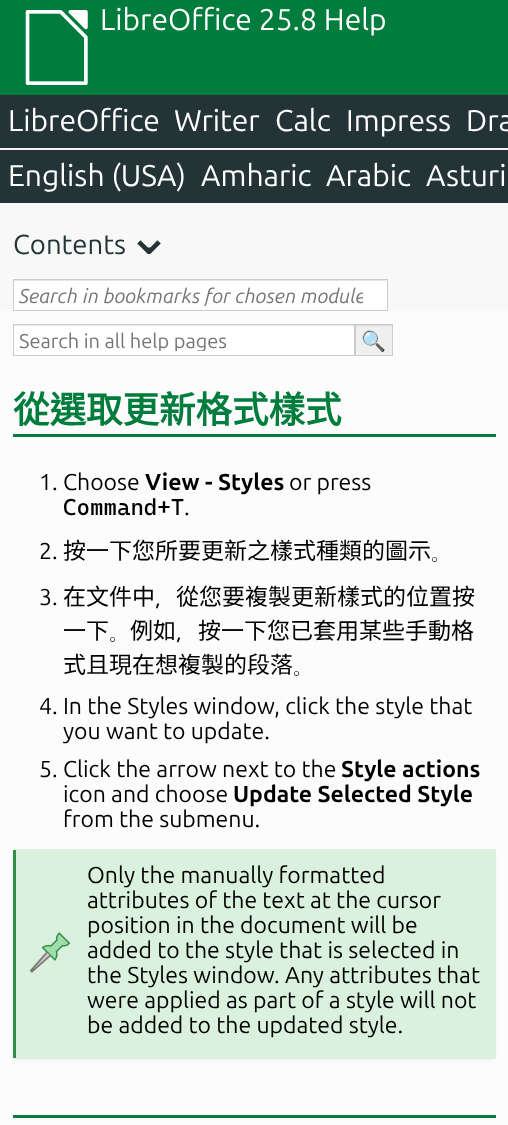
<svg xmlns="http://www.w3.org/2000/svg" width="508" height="1125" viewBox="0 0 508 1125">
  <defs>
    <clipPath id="clip1"><rect x="19" y="284" width="344" height="22"/></clipPath>
    <clipPath id="clip2"><rect x="19" y="329" width="311" height="22"/></clipPath>
  </defs>
  <rect width="100%" height="100%" fill="rgb(247,248,247)"/>
  <rect x="0" y="0" width="508" height="95" fill="rgb(0,124,60)"/>
  <image x="25" y="10" width="63" height="75" href="pic1.png"/>
  <text x="100" y="30" font-family="Ubuntu" font-size="30" fill="rgb(255,255,255)">LibreOffice 25.8 Help</text>
  <rect x="0" y="95" width="508" height="53" fill="rgb(35,51,54)"/>
  <rect x="0" y="148" width="508" height="2" fill="rgb(243,243,243)"/>
  <g font-family="Ubuntu" font-size="30" fill="rgb(255,255,255)">
    <text x="8" y="131">LibreOffice</text>
    <text x="174" y="131">Writer</text>
    <text x="275" y="131">Calc</text>
    <text x="346" y="131">Impress</text>
    <text x="466" y="131">Dra</text>
  </g>
  <rect x="0" y="150" width="508" height="53" fill="rgb(35,51,54)"/>
  <g font-family="Ubuntu" font-size="30" fill="rgb(255,255,255)">
    <text x="8" y="186">English (USA)</text>
    <text x="201" y="186">Amharic</text>
    <text x="326" y="186">Arabic</text>
    <text x="426" y="186">Asturi</text>
  </g>
  <text x="13" y="254" font-family="Ubuntu" font-size="27.5" fill="rgb(35,51,54)">Contents</text>
  <text x="126" y="254" font-family="DejaVu Sans" font-size="55" fill="rgb(35,51,54)">⌄</text>
  <rect x="14" y="280" width="373" height="30" fill="rgb(255,255,255)"/>
  <rect x="14" y="280" width="372" height="1" fill="rgb(230,230,230)"/>
  <rect x="13.5" y="279.5" width="374" height="31" fill="none" stroke="rgb(204,204,204)"/>
  <g clip-path="url(#clip1)">
    <text x="19" y="303" font-family="Ubuntu" font-size="20" font-style="italic" fill="rgb(117,117,117)">Search in bookmarks for chosen module</text>
  </g>
  <rect x="0" y="311" width="508" height="814" fill="rgb(252,252,252)"/>
  <rect x="14" y="326" width="340" height="29" fill="rgb(255,255,255)"/>
  <rect x="14" y="325" width="340" height="1" fill="rgb(230,230,230)"/>
  <rect x="13.5" y="324.5" width="341" height="31" fill="none" stroke="rgb(204,204,204)"/>
  <g clip-path="url(#clip2)">
    <text x="19" y="348" font-family="Ubuntu" font-size="20" fill="rgb(117,117,117)">Search in all help pages</text>
  </g>
  <rect x="356" y="325" width="36" height="30" fill="rgb(239,239,239)"/>
  <rect x="356" y="325" width="35" height="1" fill="rgb(215,215,215)"/>
  <rect x="355.5" y="324.5" width="37" height="31" fill="none" stroke="rgb(204,204,204)"/>
  <text x="361" y="348" font-family="Noto Color Emoji" font-size="20" fill="rgb(0,0,0)">🔍</text>
  <rect x="13" y="434" width="483" height="3" fill="rgb(0,124,60)"/>
  <text x="13" y="423" font-family="Noto Sans CJK TC" font-size="36.5" font-weight="bold" fill="rgb(0,124,60)">從選取更新格式樣式</text>
  <text x="39" y="490" font-family="Ubuntu" font-size="23" fill="rgb(0,0,0)">1. Choose</text>
  <text x="145" y="490" font-family="Ubuntu" font-size="23" font-weight="bold" fill="rgb(0,0,0)">View - Styles</text>
  <text x="289" y="490" font-family="Ubuntu" font-size="23" fill="rgb(0,0,0)">or press</text>
  <text x="63" y="515" font-family="Cascadia Mono" font-size="23" fill="rgb(0,0,0)">Command+T</text>
  <g font-family="Ubuntu" font-size="23" fill="rgb(0,0,0)">
    <text x="184" y="515">.</text>
    <text x="39" y="559">2.</text>
  </g>
  <text x="63" y="559" font-family="Noto Sans CJK TC" font-size="23" fill="rgb(0,0,0)">按一下您所要更新之樣式種類的圖示</text>
  <text x="431" y="559" font-family="NanumGothic" font-size="23" fill="rgb(0,0,0)">。</text>
  <text x="39" y="605" font-family="Ubuntu" font-size="23" fill="rgb(0,0,0)">3.</text>
  <text x="63" y="605" font-family="Noto Sans CJK TC" font-size="23" fill="rgb(0,0,0)">在文件中</text>
  <text x="155" y="605" font-family="NanumGothic" font-size="23" fill="rgb(0,0,0)">，</text>
  <g font-family="Noto Sans CJK TC" font-size="23" fill="rgb(0,0,0)">
    <text x="176" y="605">從您要複製更新樣式的位置按</text>
    <text x="63" y="639">一下</text>
  </g>
  <text x="109" y="639" font-family="NanumGothic" font-size="23" fill="rgb(0,0,0)">。</text>
  <text x="130" y="639" font-family="Noto Sans CJK TC" font-size="23" fill="rgb(0,0,0)">例如</text>
  <text x="176" y="639" font-family="NanumGothic" font-size="23" fill="rgb(0,0,0)">，</text>
  <g font-family="Noto Sans CJK TC" font-size="23" fill="rgb(0,0,0)">
    <text x="198" y="639">按一下您已套用某些手動格</text>
    <text x="63" y="673">式且現在想複製的段落</text>
  </g>
  <text x="293" y="673" font-family="NanumGothic" font-size="23" fill="rgb(0,0,0)">。</text>
  <g font-family="Ubuntu" font-size="23" fill="rgb(0,0,0)">
    <text x="39" y="714">4. In the Styles window, click the style that</text>
    <text x="63" y="739">you want to update.</text>
    <text x="39" y="777">5. Click the arrow next to the</text>
  </g>
  <text x="341" y="777" font-family="Ubuntu" font-size="23" font-weight="bold" fill="rgb(0,0,0)">Style actions</text>
  <text x="63" y="802" font-family="Ubuntu" font-size="23" fill="rgb(0,0,0)">icon and choose</text>
  <text x="233" y="802" font-family="Ubuntu" font-size="23" font-weight="bold" fill="rgb(0,0,0)">Update Selected Style</text>
  <text x="63" y="827" font-family="Ubuntu" font-size="23" fill="rgb(0,0,0)">from the submenu.</text>
  <rect x="16" y="855" width="477" height="203" fill="rgba(0,0,0,0.1)" filter="blur(3px)"/>
  <rect x="13" y="849" width="483" height="210" rx="2.5" fill="rgb(217,241,221)"/>
  <rect x="13" y="850" width="3" height="208" fill="rgb(48,144,72)"/>
  <image x="29" y="932" width="42" height="41" href="pic2.png"/>
  <g font-family="Ubuntu" font-size="23" fill="rgb(0,0,0)">
    <text>
      <tspan x="87" y="883">Only the manually formatted</tspan>
      <tspan x="87" y="908">attributes of the text at the cursor</tspan>
      <tspan x="87" y="933">position in the document will be</tspan>
      <tspan x="87" y="958">added to the style that is selected in</tspan>
      <tspan x="87" y="983">the Styles window. Any attributes that</tspan>
      <tspan x="87" y="1008">were applied as part of a style will not</tspan>
      <tspan x="87" y="1033">be added to the updated style.</tspan>
    </text>
  </g>
  <rect x="13" y="1115" width="483" height="3" fill="rgb(0,124,60)"/>
</svg>
